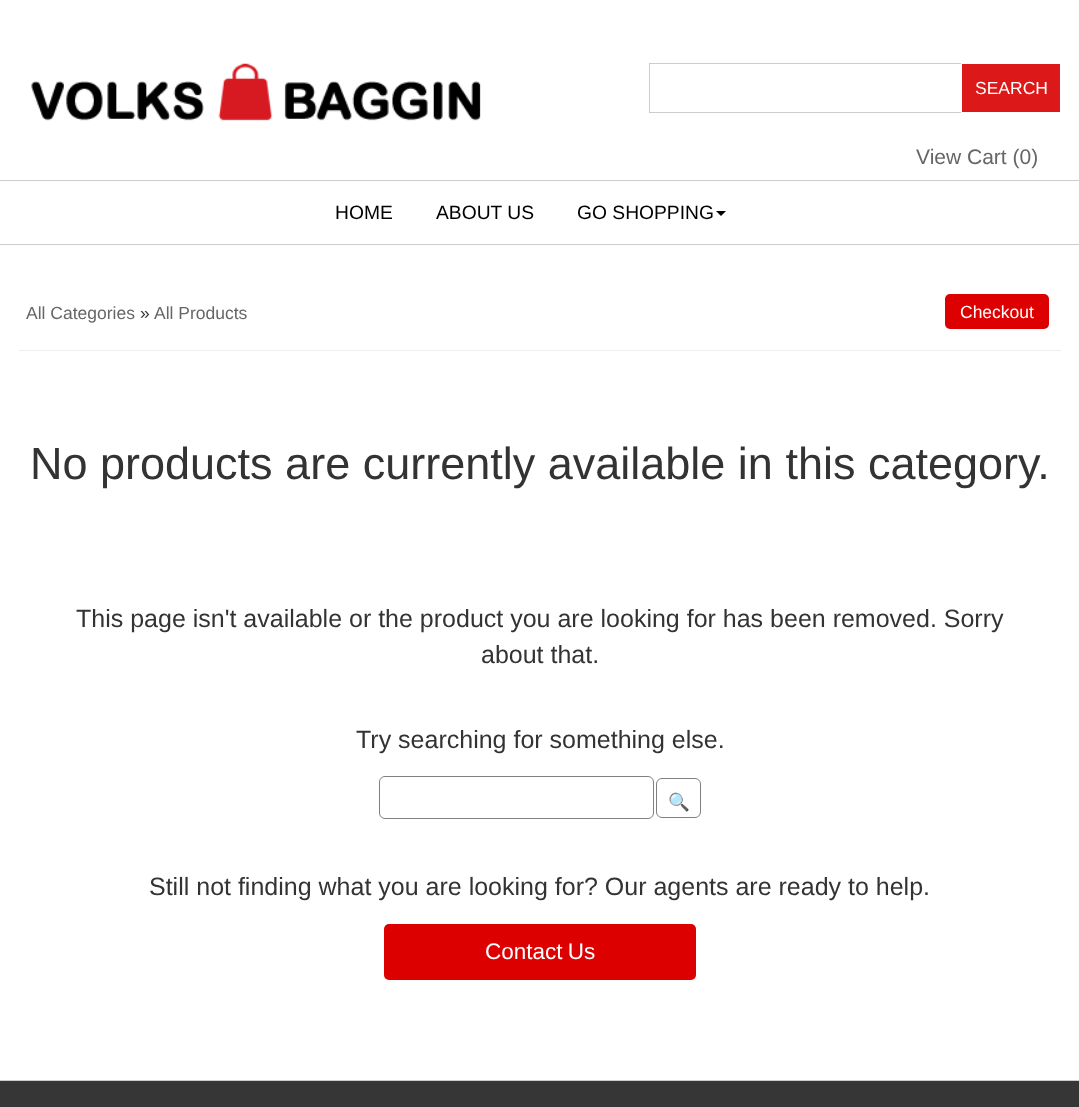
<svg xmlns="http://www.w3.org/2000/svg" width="1079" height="1107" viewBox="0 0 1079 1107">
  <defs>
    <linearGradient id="g1" gradientUnits="userSpaceOnUse" x1="540" y1="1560" x2="540" y2="1081"><stop offset="0" stop-color="rgb(204,204,204)"/><stop offset="0.01" stop-color="rgb(54,54,54)"/></linearGradient>
  </defs>
  <rect width="100%" height="100%" fill="rgb(255,255,255)"/>
  <image x="31" y="63" width="450" height="58" href="pic1.png"/>
  <rect x="649.5" y="63.5" width="411" height="49" fill="none" stroke="rgb(204,204,204)"/>
  <rect x="961.5" y="63.5" width="99" height="49" fill="rgb(221,24,24)" stroke="rgb(255,255,255)"/>
  <text x="975" y="94" font-family="Liberation Sans" font-size="17.5" fill="rgb(255,255,255)">SEARCH</text>
  <text x="916" y="164" font-family="Liberation Sans" font-size="21" fill="rgb(102,102,102)">View Cart (0)</text>
  <rect x="0" y="180" width="1079" height="1" fill="rgb(204,204,204)"/>
  <rect x="0" y="244" width="1079" height="1" fill="rgb(204,204,204)"/>
  <g font-family="Liberation Sans" font-size="19.25" fill="rgb(0,0,0)">
    <text x="335" y="219">HOME</text>
    <text x="436" y="219">ABOUT US</text>
    <text x="577" y="219">GO SHOPPING</text>
  </g>
  <path d="M716 211H726L721 216Z" fill="rgb(0,0,0)"/>
  <rect x="19" y="350" width="1042" height="1" fill="rgb(238,238,238)"/>
  <text x="26" y="319" font-family="Liberation Sans" font-size="17.5" fill="rgb(102,102,102)">All Categories</text>
  <text x="140" y="319" font-family="Liberation Sans" font-size="17.5" fill="rgb(51,51,51)">»</text>
  <text x="154" y="319" font-family="Liberation Sans" font-size="17.5" fill="rgb(102,102,102)">All Products</text>
  <rect x="945" y="294" width="104" height="35" rx="5" fill="rgb(221,0,0)"/>
  <text x="960" y="318" font-family="Liberation Sans" font-size="17.5" fill="rgb(255,255,255)">Checkout</text>
  <text x="30" y="479" font-family="Liberation Sans" font-size="45" fill="rgb(51,51,51)">No products are currently available in this category.</text>
  <g font-family="Liberation Sans" font-size="25" fill="rgb(51,51,51)">
    <text x="76" y="627">This page isn't available or the product you are looking for has been removed. Sorry</text>
    <text x="481" y="663">about that.</text>
    <text x="356" y="748">Try searching for something else.</text>
  </g>
  <rect x="379.5" y="776.5" width="274" height="42" rx="5.5" fill="none" stroke="rgb(128,128,128)"/>
  <rect x="656.5" y="778.5" width="44" height="39" rx="5.5" fill="none" stroke="rgb(128,128,128)"/>
  <text x="668" y="808" font-family="Noto Color Emoji" font-size="17.5" fill="rgb(0,0,0)">🔍</text>
  <text x="149" y="895" font-family="Liberation Sans" font-size="25" fill="rgb(51,51,51)">Still not finding what you are looking for? Our agents are ready to help.</text>
  <rect x="384" y="924" width="312" height="56" rx="5" fill="rgb(221,0,0)"/>
  <text x="485" y="959" word-spacing="-1" font-family="Liberation Sans" font-size="22.5" fill="rgb(255,255,255)">Contact Us</text>
  <rect x="0" y="1081" width="1079" height="26" fill="url(#g1)"/>
  <rect x="0" y="1080" width="1079" height="1" fill="rgb(204,204,204)"/>
</svg>
